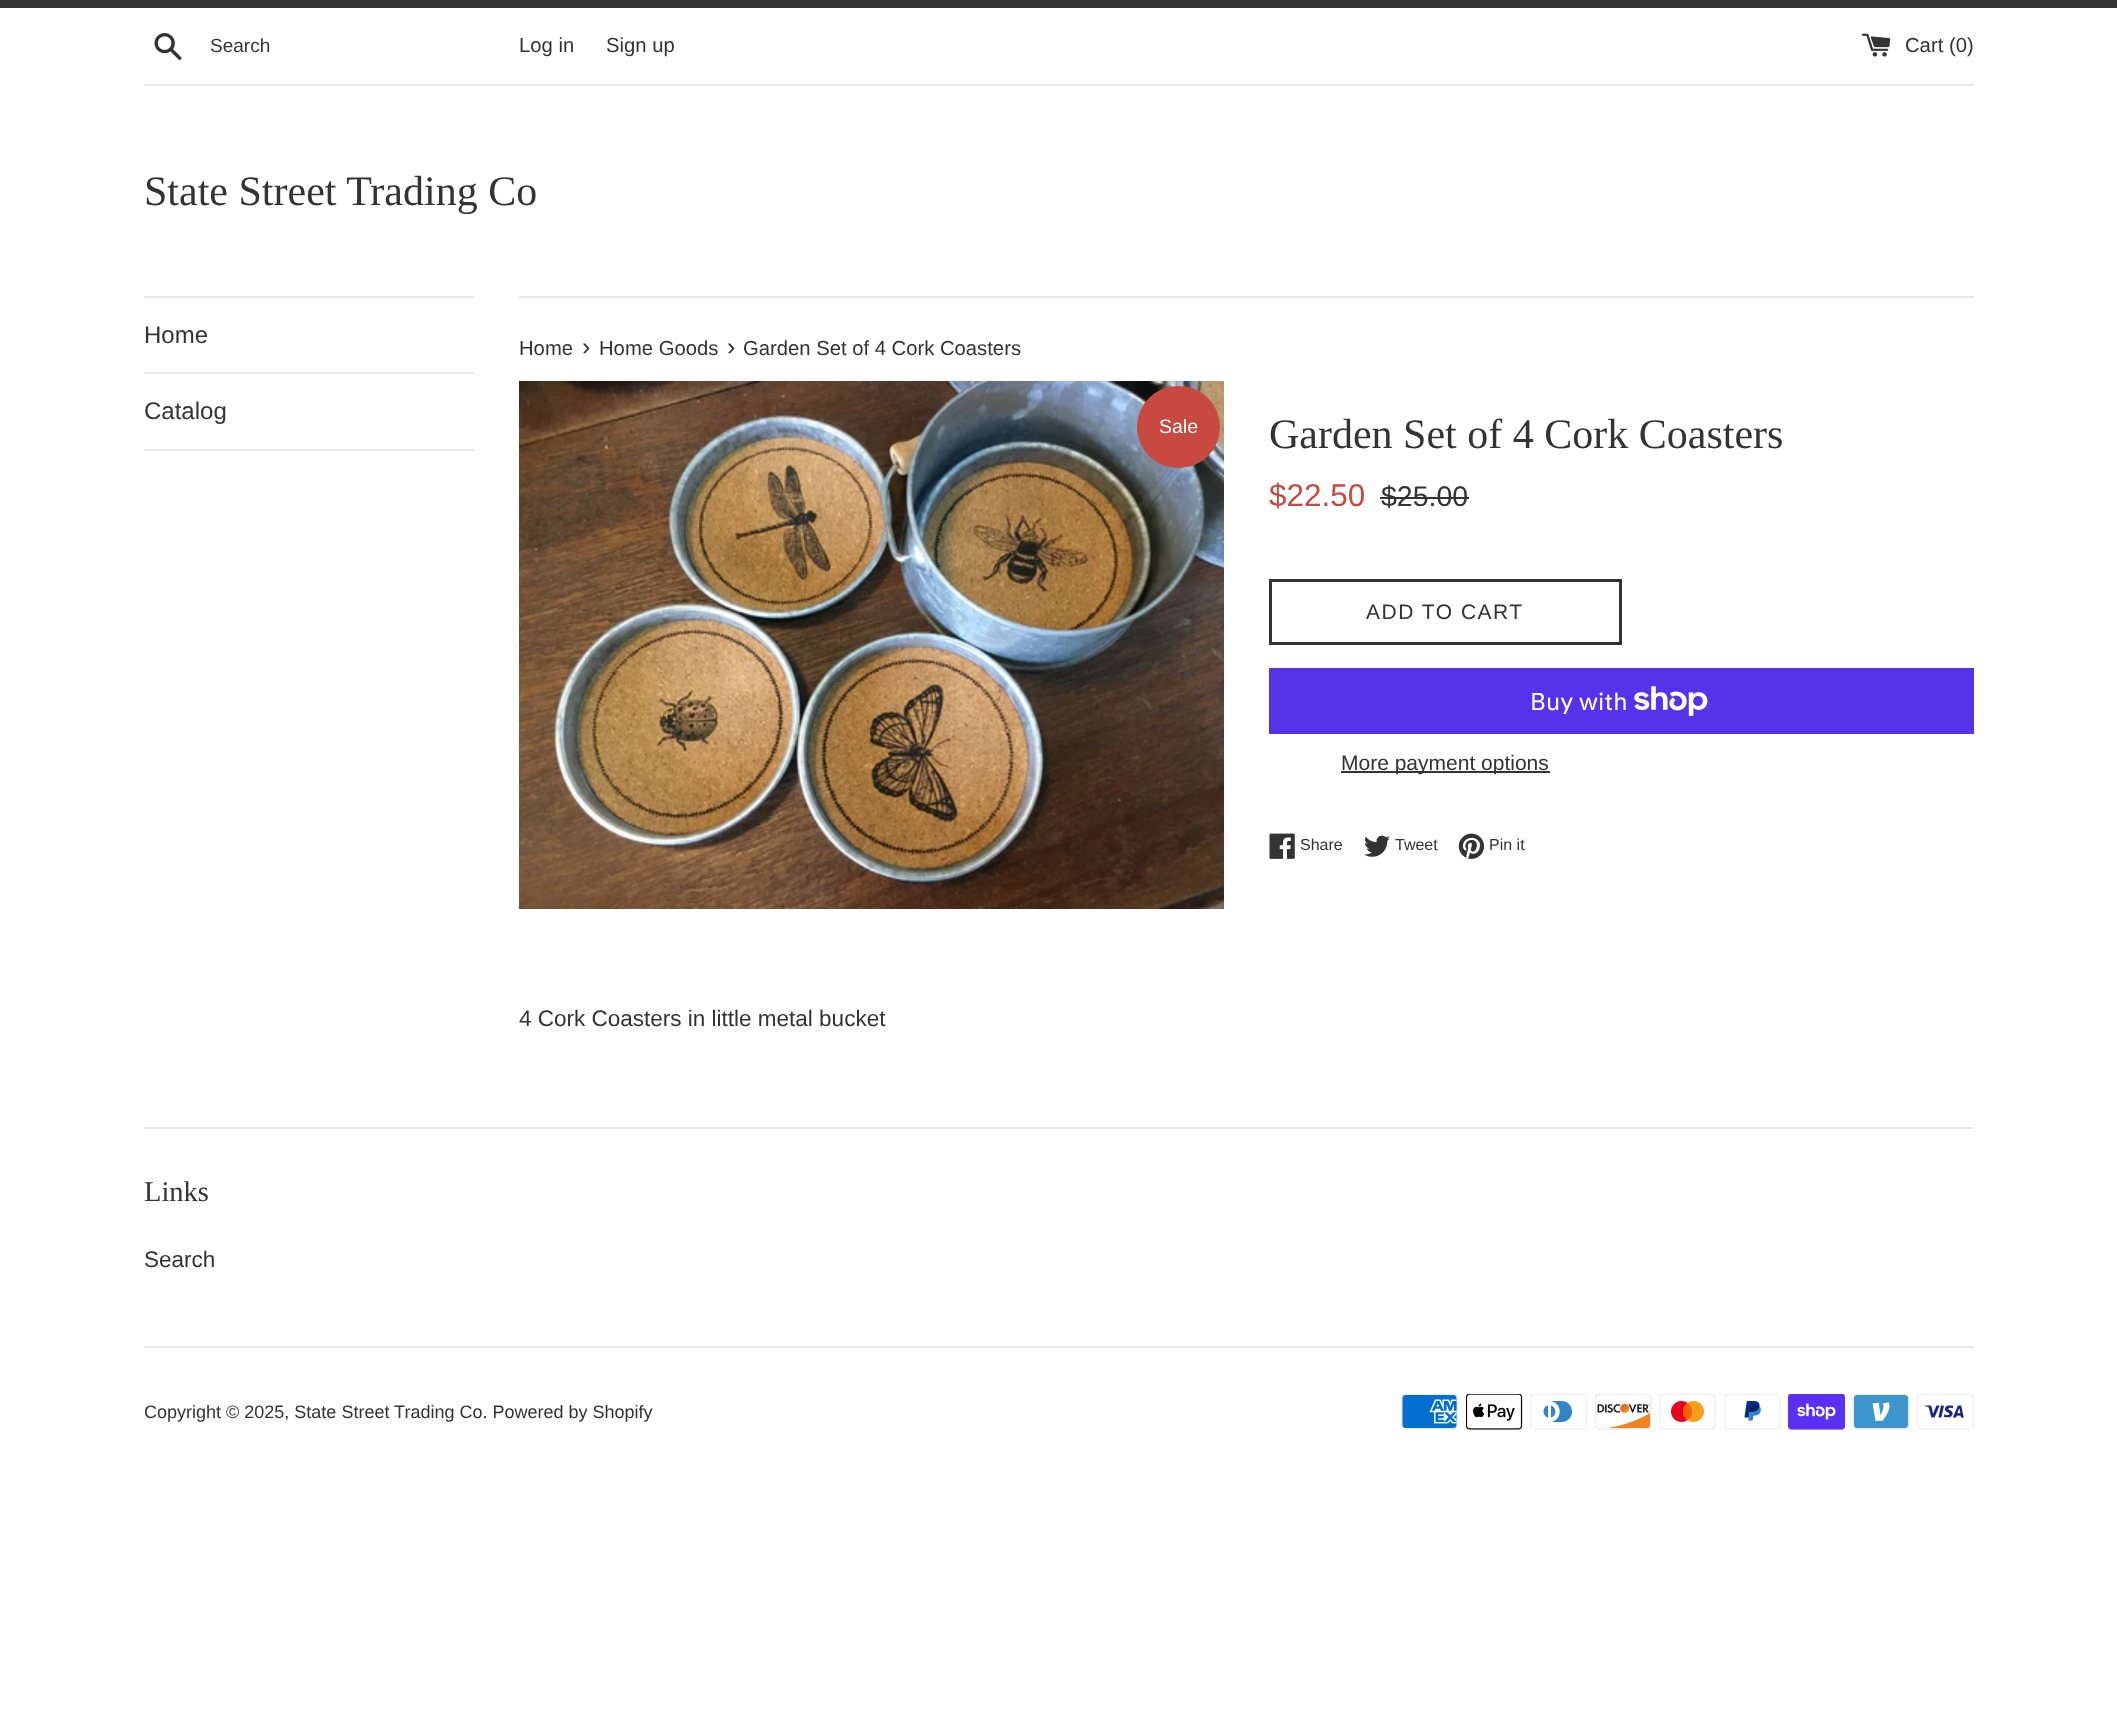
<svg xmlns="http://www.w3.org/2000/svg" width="2117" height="1710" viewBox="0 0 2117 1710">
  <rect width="100%" height="100%" fill="rgb(255,255,255)"/>
  <rect x="0" y="0" width="2117" height="8" fill="rgb(51,51,51)"/>
  <image x="154" y="33" width="28" height="27" href="pic1.png"/>
  <text x="210" y="52" font-family="Liberation Sans" font-size="19" fill="rgb(51,51,51)">Search</text>
  <g font-family="Liberation Sans" font-size="20.25" fill="rgb(51,51,51)">
    <text x="519" y="52">Log in</text>
    <text x="606" y="52">Sign up</text>
  </g>
  <image x="1862" y="33" width="29" height="24" href="pic2.png"/>
  <text x="1905" y="52" font-family="Liberation Sans" font-size="20.25" fill="rgb(51,51,51)">Cart (0)</text>
  <rect x="144" y="84" width="1830" height="2" fill="rgb(232,232,232)"/>
  <text x="144" y="205" font-family="Liberation Serif" font-size="42" fill="rgb(51,51,51)">State Street Trading Co</text>
  <rect x="144" y="296" width="330" height="2" fill="rgb(232,232,232)"/>
  <rect x="144" y="372" width="330" height="2" fill="rgb(232,232,232)"/>
  <text x="144" y="343" font-family="Liberation Sans" font-size="24" fill="rgb(51,51,51)">Home</text>
  <rect x="144" y="449" width="330" height="2" fill="rgb(232,232,232)"/>
  <text x="144" y="419" font-family="Liberation Sans" font-size="24" fill="rgb(51,51,51)">Catalog</text>
  <rect x="519" y="296" width="1455" height="2" fill="rgb(232,232,232)"/>
  <text x="519" y="355" font-family="Liberation Sans" font-size="20.25" fill="rgb(51,51,51)">Home</text>
  <text x="582" y="355" font-family="Liberation Sans" font-size="25" fill="rgb(51,51,51)">›</text>
  <text x="599" y="355" font-family="Liberation Sans" font-size="20.25" fill="rgb(51,51,51)">Home Goods</text>
  <text x="727" y="355" font-family="Liberation Sans" font-size="25" fill="rgb(51,51,51)">›</text>
  <text x="743" y="355" font-family="Liberation Sans" font-size="20.25" fill="rgb(51,51,51)">Garden Set of 4 Cork Coasters</text>
  <image x="519" y="381" width="705" height="528" href="pic3.png"/>
  <rect x="1137" y="386" width="83" height="82" rx="41" fill="rgb(200,73,63)"/>
  <text x="1159" y="433" font-family="Liberation Sans" font-size="19.5" fill="rgb(255,255,255)">Sale</text>
  <text x="1269" y="448" font-family="Liberation Serif" font-size="42" fill="rgb(51,51,51)">Garden Set of 4 Cork Coasters</text>
  <text x="1269" y="506" font-family="Liberation Sans" font-size="31.5" fill="rgb(200,73,63)">$22.50</text>
  <text x="1381" y="506" font-family="Liberation Sans" font-size="28.5" fill="rgb(51,51,51)">$25.00</text>
  <rect x="1380" y="497" width="89" height="2" fill="rgb(51,51,51)"/>
  <rect x="1270.5" y="580.5" width="350" height="63" fill="none" stroke="rgb(51,51,51)" stroke-width="3"/>
  <text x="1366" y="619" font-family="Liberation Sans" font-size="21" letter-spacing="1.5" fill="rgb(51,51,51)">ADD TO CART</text>
  <rect x="1269" y="668" width="705" height="66" fill="rgb(84,51,235)"/>
  <text x="1530" y="710" font-family="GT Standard" font-size="24" fill="rgb(255,255,255)">Buy with</text>
  <image x="1634" y="686" width="74" height="30" href="pic4.png"/>
  <rect x="1341" y="771" width="209" height="2" fill="rgb(51,51,51)"/>
  <text x="1341" y="770" font-family="Liberation Sans" font-size="21" fill="rgb(51,51,51)">More payment options</text>
  <image x="1269" y="833" width="26" height="26" href="pic5.png"/>
  <text x="1300" y="850" font-family="Liberation Sans" font-size="16" fill="rgb(51,51,51)">Share</text>
  <image x="1364" y="835" width="26" height="22" href="pic6.png"/>
  <text x="1395" y="850" font-family="Liberation Sans" font-size="16" fill="rgb(51,51,51)">Tweet</text>
  <image x="1458" y="833" width="27" height="26" href="pic7.png"/>
  <text x="1489" y="850" font-family="Liberation Sans" font-size="16" fill="rgb(51,51,51)">Pin it</text>
  <text x="519" y="1026" font-family="Liberation Sans" font-size="22.5" fill="rgb(51,51,51)">4 Cork Coasters in little metal bucket</text>
  <rect x="144" y="1127" width="1830" height="2" fill="rgb(232,232,232)"/>
  <text x="144" y="1201" font-family="Liberation Serif" font-size="28.5" fill="rgb(51,51,51)">Links</text>
  <text x="144" y="1267" font-family="Liberation Sans" font-size="22.5" fill="rgb(51,51,51)">Search</text>
  <rect x="144" y="1346" width="1830" height="2" fill="rgb(232,232,232)"/>
  <text x="144" y="1418" font-family="Liberation Sans" font-size="18" fill="rgb(51,51,51)">Copyright © 2025, State Street Trading Co. Powered by Shopify</text>
  <image x="1401" y="1394" width="57" height="36" href="pic8.png"/>
  <image x="1466" y="1394" width="57" height="36" href="pic9.png"/>
  <image x="1530" y="1394" width="57" height="36" href="pic10.png"/>
  <image x="1595" y="1394" width="57" height="36" href="pic11.png"/>
  <image x="1659" y="1394" width="57" height="36" href="pic12.png"/>
  <image x="1724" y="1394" width="57" height="36" href="pic13.png"/>
  <image x="1788" y="1394" width="57" height="36" href="pic14.png"/>
  <image x="1853" y="1394" width="57" height="36" href="pic15.png"/>
  <image x="1917" y="1394" width="57" height="36" href="pic16.png"/>
</svg>
